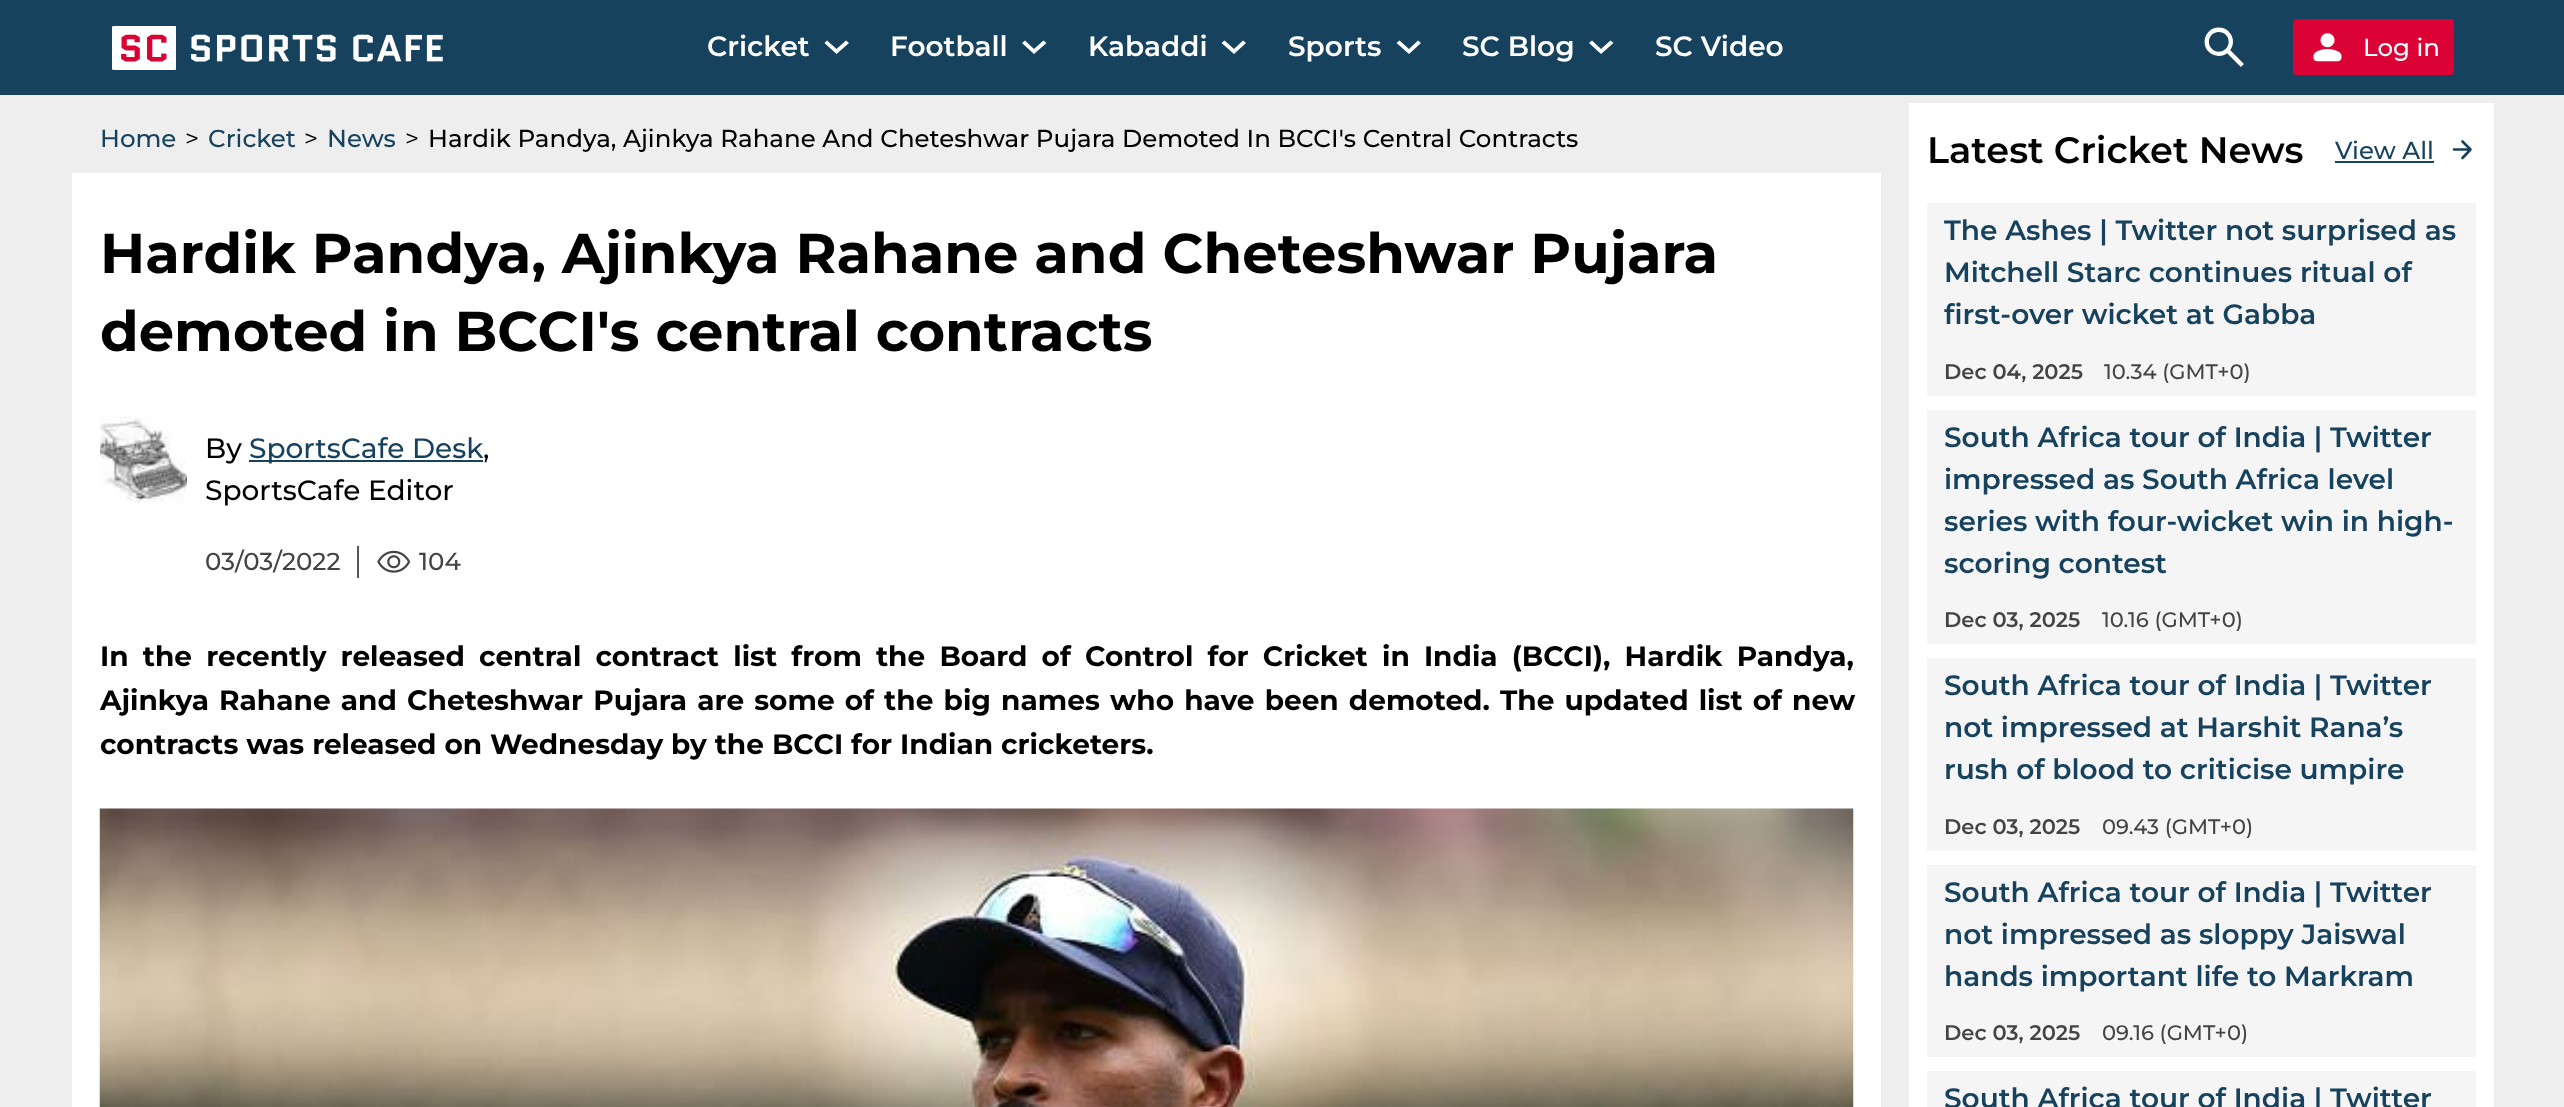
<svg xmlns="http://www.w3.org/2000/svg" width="2564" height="1107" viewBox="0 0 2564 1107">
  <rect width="100%" height="100%" fill="rgb(238,238,238)"/>
  <rect x="0" y="0" width="2564" height="95" fill="rgb(23,66,93)"/>
  <image x="112" y="26" width="331" height="44" href="pic1.png"/>
  <text x="707" y="56" font-family="Montserrat" font-size="28" font-weight="600" fill="rgb(255,255,255)">Cricket</text>
  <path d="M827 40.5L836.5 49L846 40.5L849 43L836.5 54L824.5 43Z" fill="rgb(255,255,255)"/>
  <text x="890" y="56" font-family="Montserrat" font-size="28" font-weight="600" fill="rgb(255,255,255)">Football</text>
  <path d="M1025 40.5L1034 49L1043.5 40.5L1046.5 43L1034 54L1022 43Z" fill="rgb(255,255,255)"/>
  <text x="1088" y="56" font-family="Montserrat" font-size="28" font-weight="600" fill="rgb(255,255,255)">Kabaddi</text>
  <path d="M1224.5 40.5L1234 49L1243 40.5L1246 43L1234 54L1221.5 43Z" fill="rgb(255,255,255)"/>
  <text x="1288" y="56" font-family="Montserrat" font-size="28" font-weight="600" fill="rgb(255,255,255)">Sports</text>
  <path d="M1399.5 40.5L1409 49L1418 40.5L1421 43L1409 54L1396.5 43Z" fill="rgb(255,255,255)"/>
  <text x="1462" y="56" font-family="Montserrat" font-size="28" font-weight="600" fill="rgb(255,255,255)">SC Blog</text>
  <path d="M1592 40.5L1601 49L1610.5 40.5L1613.5 43L1601 54L1589 43Z" fill="rgb(255,255,255)"/>
  <text x="1655" y="56" font-family="Montserrat" font-size="28" font-weight="600" fill="rgb(255,255,255)">SC Video</text>
  <image x="2204" y="27" width="40" height="40" href="pic2.png"/>
  <rect x="2293" y="19" width="161" height="56" rx="4" fill="rgb(219,2,53)"/>
  <image x="2313" y="33" width="29" height="29" href="pic3.png"/>
  <text x="2363" y="56" font-family="Montserrat" font-size="24.5" font-weight="500" fill="rgb(255,255,255)">Log in</text>
  <text x="100" y="147" font-family="Montserrat" font-size="24.5" font-weight="500" fill="rgb(23,66,93)">Home</text>
  <text x="185" y="147" font-family="Montserrat" font-size="24.5" fill="rgb(0,0,0)">&gt;</text>
  <text x="208" y="147" font-family="Montserrat" font-size="24.5" font-weight="500" fill="rgb(23,66,93)">Cricket</text>
  <text x="304" y="147" font-family="Montserrat" font-size="24.5" fill="rgb(0,0,0)">&gt;</text>
  <text x="327" y="147" font-family="Montserrat" font-size="24.5" font-weight="500" fill="rgb(23,66,93)">News</text>
  <text x="405" y="147" font-family="Montserrat" font-size="24.5" fill="rgb(0,0,0)">&gt;</text>
  <text x="428" y="147" font-family="Montserrat" font-size="24.5" font-weight="500" fill="rgb(0,0,0)">Hardik Pandya, Ajinkya Rahane And Cheteshwar Pujara Demoted In BCCI's Central Contracts</text>
  <rect x="72" y="173" width="1809" height="934" fill="rgb(255,255,255)"/>
  <g font-family="Montserrat" font-size="56" font-weight="bold" fill="rgb(0,0,0)">
    <text>
      <tspan x="100" y="273">Hardik Pandya, Ajinkya Rahane and Cheteshwar Pujara</tspan>
      <tspan x="100" y="351">demoted in BCCI's central contracts</tspan>
    </text>
  </g>
  <image x="100" y="416" width="88" height="87" href="pic4.png"/>
  <text x="205" y="458" font-family="Montserrat" font-size="28" font-weight="500" fill="rgb(0,0,0)">By</text>
  <rect x="249" y="460" width="234" height="2" fill="rgb(23,66,93)"/>
  <text x="249" y="458" font-family="Montserrat" font-size="28" font-weight="500" fill="rgb(23,66,93)">SportsCafe Desk</text>
  <g font-family="Montserrat" font-size="28" font-weight="500" fill="rgb(0,0,0)">
    <text x="483" y="458">,</text>
    <text x="205" y="500">SportsCafe Editor</text>
  </g>
  <text x="205" y="570" font-family="Montserrat" font-size="24.5" font-weight="500" fill="rgb(68,68,68)">03/03/2022</text>
  <rect x="357" y="546" width="2" height="32" fill="rgb(87,87,87)"/>
  <image x="377" y="550" width="34" height="23" href="pic5.png"/>
  <text x="419" y="570" font-family="Montserrat" font-size="24.5" font-weight="500" fill="rgb(68,68,68)">104</text>
  <g font-family="Montserrat" font-size="28" font-weight="bold" fill="rgb(0,0,0)">
    <text>
      <tspan x="100" y="666" word-spacing="6.25">In the recently released central contract list from the Board of Control for Cricket in India (BCCI), Hardik Pandya,</tspan>
      <tspan x="100" y="710" word-spacing="2.25">Ajinkya Rahane and Cheteshwar Pujara are some of the big names who have been demoted. The updated list of new</tspan>
      <tspan x="100" y="754">contracts was released on Wednesday by the BCCI for Indian cricketers.</tspan>
    </text>
  </g>
  <image x="99" y="808" width="1755" height="299" href="pic6.png"/>
  <rect x="1909" y="103" width="585" height="1004" fill="rgb(255,255,255)"/>
  <text x="1927" y="163" font-family="Montserrat" font-size="36.75" font-weight="600" fill="rgb(0,0,0)">Latest Cricket News</text>
  <text x="2335" y="159" font-family="Montserrat" font-size="24.5" font-weight="500" fill="rgb(23,66,93)">View All</text>
  <rect x="2335" y="161" width="99" height="2" fill="rgb(23,66,93)"/>
  <path d="M2454 149.5H2470.5M2470.5 149.5L2462.5 141.5M2470.5 149.5L2462.5 158" fill="none" stroke="rgb(23,66,93)" stroke-width="2.6" stroke-linecap="round" stroke-linejoin="round"/>
  <rect x="1927" y="203" width="549" height="193" fill="rgb(245,245,245)"/>
  <g font-family="Montserrat" font-size="28" font-weight="600" fill="rgb(23,66,93)">
    <text>
      <tspan x="1944" y="240">The Ashes | Twitter not surprised as</tspan>
      <tspan x="1944" y="282">Mitchell Starc continues ritual of</tspan>
      <tspan x="1944" y="324">first-over wicket at Gabba</tspan>
    </text>
  </g>
  <text x="1944" y="379" font-family="Montserrat" font-size="21" font-weight="600" fill="rgb(68,68,68)">Dec 04, 2025</text>
  <text x="2104" y="379" font-family="Montserrat" font-size="21" font-weight="500" fill="rgb(68,68,68)">10.34 (GMT+0)</text>
  <rect x="1927" y="410" width="549" height="234" fill="rgb(245,245,245)"/>
  <g font-family="Montserrat" font-size="28" font-weight="600" fill="rgb(23,66,93)">
    <text>
      <tspan x="1944" y="447">South Africa tour of India | Twitter</tspan>
      <tspan x="1944" y="489">impressed as South Africa level</tspan>
      <tspan x="1944" y="531">series with four-wicket win in high-</tspan>
      <tspan x="1944" y="573">scoring contest</tspan>
    </text>
  </g>
  <text x="1944" y="627" font-family="Montserrat" font-size="21" font-weight="600" fill="rgb(68,68,68)">Dec 03, 2025</text>
  <text x="2102" y="627" font-family="Montserrat" font-size="21" font-weight="500" fill="rgb(68,68,68)">10.16 (GMT+0)</text>
  <rect x="1927" y="658" width="549" height="193" fill="rgb(245,245,245)"/>
  <g font-family="Montserrat" font-size="28" font-weight="600" fill="rgb(23,66,93)">
    <text>
      <tspan x="1944" y="695">South Africa tour of India | Twitter</tspan>
      <tspan x="1944" y="737">not impressed at Harshit Rana’s</tspan>
      <tspan x="1944" y="779">rush of blood to criticise umpire</tspan>
    </text>
  </g>
  <text x="1944" y="834" font-family="Montserrat" font-size="21" font-weight="600" fill="rgb(68,68,68)">Dec 03, 2025</text>
  <text x="2102" y="834" font-family="Montserrat" font-size="21" font-weight="500" fill="rgb(68,68,68)">09.43 (GMT+0)</text>
  <rect x="1927" y="865" width="549" height="192" fill="rgb(245,245,245)"/>
  <g font-family="Montserrat" font-size="28" font-weight="600" fill="rgb(23,66,93)">
    <text>
      <tspan x="1944" y="902">South Africa tour of India | Twitter</tspan>
      <tspan x="1944" y="944">not impressed as sloppy Jaiswal</tspan>
      <tspan x="1944" y="986">hands important life to Markram</tspan>
    </text>
  </g>
  <text x="1944" y="1040" font-family="Montserrat" font-size="21" font-weight="600" fill="rgb(68,68,68)">Dec 03, 2025</text>
  <text x="2102" y="1040" font-family="Montserrat" font-size="21" font-weight="500" fill="rgb(68,68,68)">09.16 (GMT+0)</text>
  <rect x="1927" y="1071" width="549" height="36" fill="rgb(245,245,245)"/>
  <text x="1944" y="1108" font-family="Montserrat" font-size="28" font-weight="600" fill="rgb(23,66,93)">South Africa tour of India | Twitter</text>
</svg>
